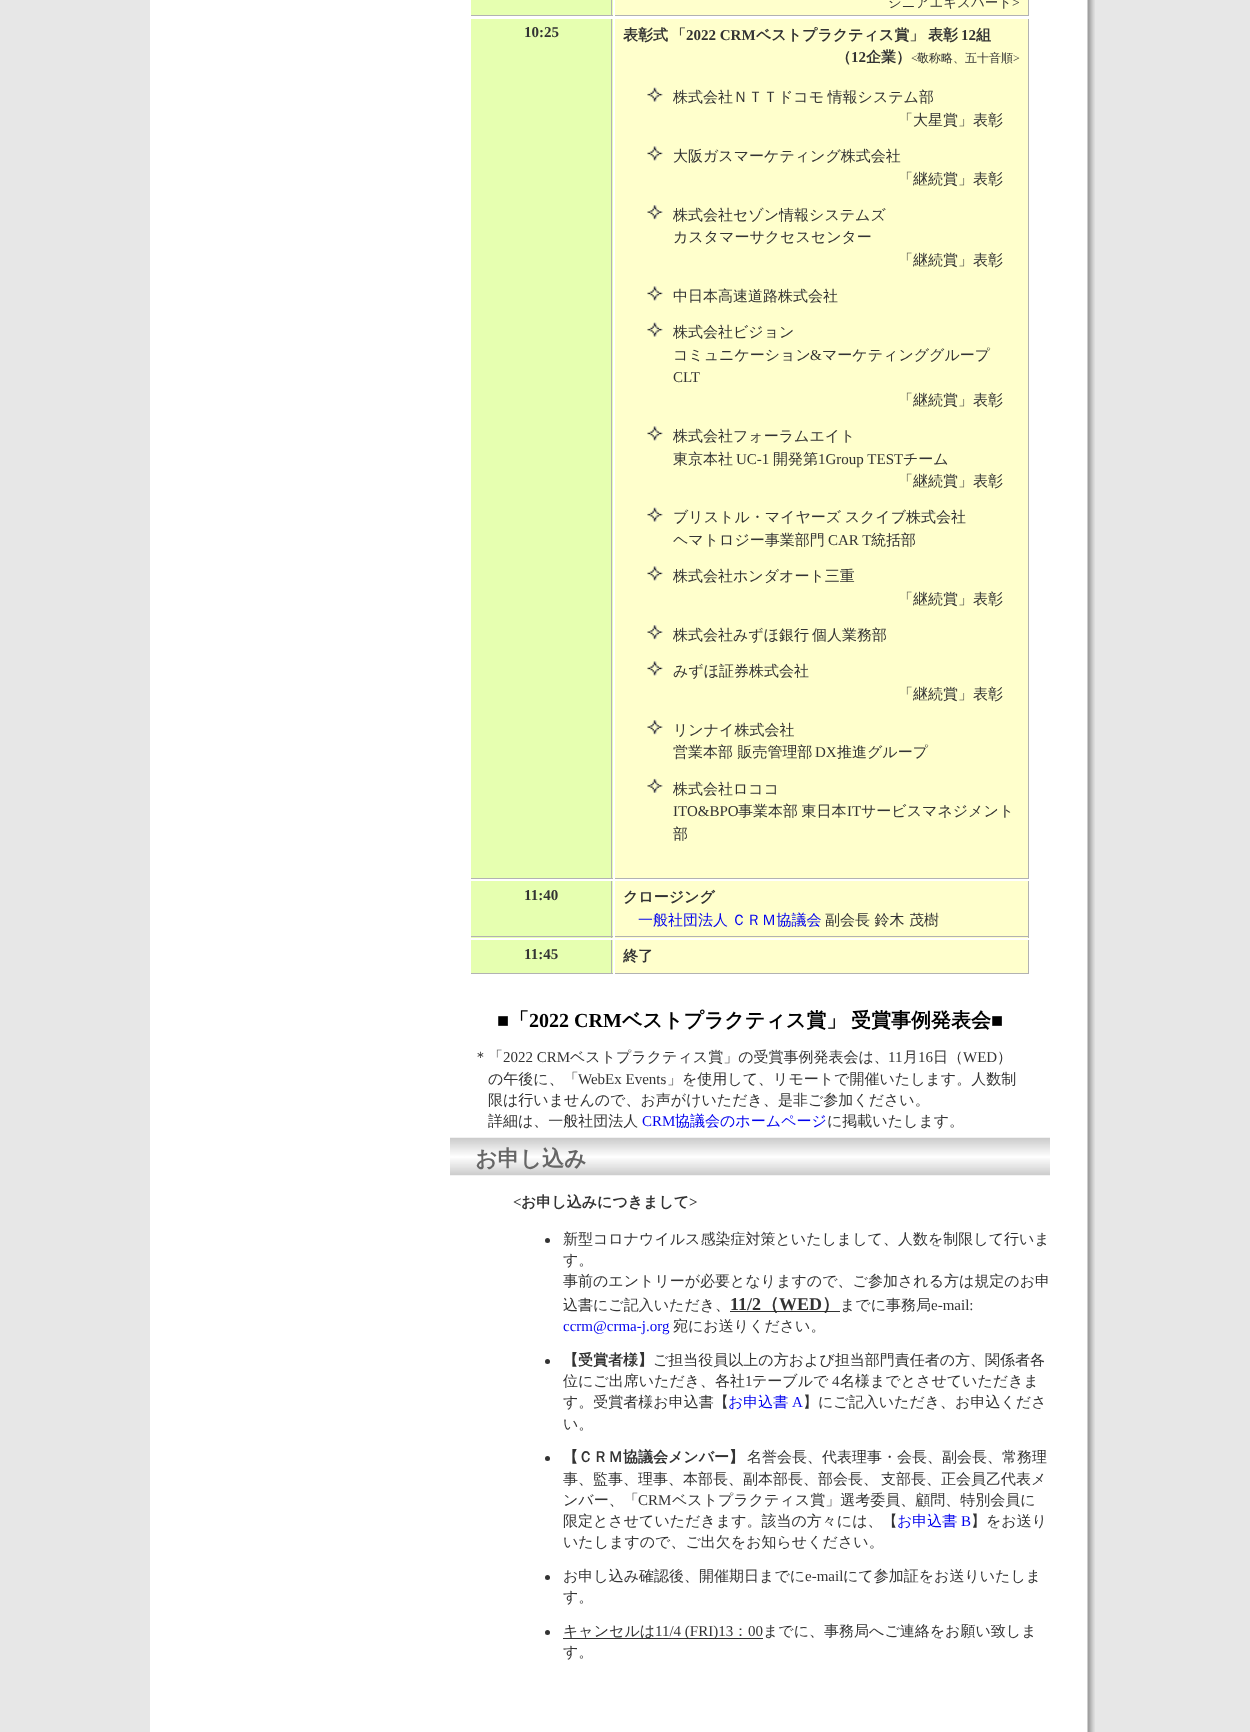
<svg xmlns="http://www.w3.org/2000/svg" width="1250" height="1732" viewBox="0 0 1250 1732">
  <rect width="100%" height="100%" fill="rgb(231,231,231)"/>
  <rect x="150" y="0" width="938" height="1732" fill="rgb(255,255,255)"/>
  <rect x="471" y="0" width="142" height="15" fill="rgb(230,255,176)"/>
  <rect x="611" y="0" width="1" height="16" fill="rgb(178,178,178)"/>
  <rect x="471" y="15" width="142" height="1" fill="rgb(178,178,178)"/>
  <rect x="615" y="0" width="413" height="15" fill="rgb(255,255,204)"/>
  <rect x="1028" y="0" width="1" height="16" fill="rgb(178,178,178)"/>
  <rect x="615" y="15" width="414" height="1" fill="rgb(178,178,178)"/>
  <text x="888" y="7" font-family="WenQuanYi Zen Hei" font-size="13.5" font-weight="500" fill="rgb(51,51,51)">シニアエキスパート</text>
  <text x="1012" y="7" font-family="Liberation Serif" font-size="13.5" fill="rgb(51,51,51)">&gt;</text>
  <rect x="471" y="19" width="142" height="859" fill="rgb(230,255,176)"/>
  <rect x="611" y="19" width="1" height="860" fill="rgb(178,178,178)"/>
  <rect x="471" y="878" width="142" height="1" fill="rgb(178,178,178)"/>
  <text x="524" y="37" font-family="Liberation Serif" font-size="15" font-weight="bold" fill="rgb(51,51,51)">10:25</text>
  <rect x="615" y="19" width="413" height="859" fill="rgb(255,255,204)"/>
  <rect x="1028" y="19" width="1" height="860" fill="rgb(178,178,178)"/>
  <rect x="615" y="878" width="414" height="1" fill="rgb(178,178,178)"/>
  <g font-family="WenQuanYi Zen Hei" font-size="15" font-weight="bold" fill="rgb(51,51,51)">
    <text x="623" y="40">表彰式</text>
    <text x="671" y="40">「</text>
  </g>
  <text x="686" y="40" font-family="Liberation Serif" font-size="15" font-weight="bold" fill="rgb(51,51,51)">2022 CRM</text>
  <g font-family="WenQuanYi Zen Hei" font-size="15" font-weight="bold" fill="rgb(51,51,51)">
    <text x="756" y="40">ベストプラクティス賞」</text>
    <text x="928" y="40">表彰</text>
  </g>
  <text x="961" y="40" font-family="Liberation Serif" font-size="15" font-weight="bold" fill="rgb(51,51,51)">12</text>
  <g font-family="WenQuanYi Zen Hei" font-size="15" font-weight="bold" fill="rgb(51,51,51)">
    <text x="976" y="40">組</text>
    <text x="836" y="62">（</text>
  </g>
  <text x="851" y="62" font-family="Liberation Serif" font-size="15" font-weight="bold" fill="rgb(51,51,51)">12</text>
  <text x="866" y="62" font-family="WenQuanYi Zen Hei" font-size="15" font-weight="bold" fill="rgb(51,51,51)">企業）</text>
  <text x="911" y="62" font-family="Liberation Serif" font-size="12" fill="rgb(51,51,51)">&lt;</text>
  <text x="917" y="62" font-family="WenQuanYi Zen Hei" font-size="12" font-weight="500" fill="rgb(51,51,51)">敬称略、五十音順</text>
  <text x="1013" y="62" font-family="Liberation Serif" font-size="12" fill="rgb(51,51,51)">&gt;</text>
  <image x="647" y="87" width="16" height="15" href="pic1.png"/>
  <g font-family="WenQuanYi Zen Hei" font-size="15" font-weight="500" fill="rgb(51,51,51)">
    <text x="673" y="102" word-spacing="-1">株式会社ＮＴＴドコモ 情報システム部</text>
    <text x="898" y="125">「大星賞」表彰</text>
  </g>
  <image x="647" y="146" width="16" height="15" href="pic2.png"/>
  <g font-family="WenQuanYi Zen Hei" font-size="15" font-weight="500" fill="rgb(51,51,51)">
    <text x="673" y="161">大阪ガスマーケティング株式会社</text>
    <text x="898" y="184">「継続賞」表彰</text>
  </g>
  <image x="647" y="205" width="16" height="15" href="pic3.png"/>
  <g font-family="WenQuanYi Zen Hei" font-size="15" font-weight="500" fill="rgb(51,51,51)">
    <text>
      <tspan x="673" y="220">株式会社セゾン情報システムズ</tspan>
      <tspan x="673" y="242">カスタマーサクセスセンター</tspan>
    </text>
    <text x="898" y="265">「継続賞」表彰</text>
  </g>
  <image x="647" y="286" width="16" height="15" href="pic2.png"/>
  <text x="673" y="301" font-family="WenQuanYi Zen Hei" font-size="15" font-weight="500" fill="rgb(51,51,51)">中日本高速道路株式会社</text>
  <image x="647" y="322" width="16" height="15" href="pic1.png"/>
  <g font-family="WenQuanYi Zen Hei" font-size="15" font-weight="500" fill="rgb(51,51,51)">
    <text>
      <tspan x="673" y="337">株式会社ビジョン</tspan>
      <tspan x="673" y="360">コミュニケーション</tspan>
    </text>
  </g>
  <text x="810" y="360" font-family="Liberation Serif" font-size="15" fill="rgb(51,51,51)">&amp;</text>
  <text x="822" y="360" font-family="WenQuanYi Zen Hei" font-size="15" font-weight="500" fill="rgb(51,51,51)">マーケティンググループ</text>
  <text x="673" y="382" font-family="Liberation Serif" font-size="15" fill="rgb(51,51,51)">CLT</text>
  <text x="898" y="405" font-family="WenQuanYi Zen Hei" font-size="15" font-weight="500" fill="rgb(51,51,51)">「継続賞」表彰</text>
  <image x="647" y="426" width="16" height="15" href="pic2.png"/>
  <g font-family="WenQuanYi Zen Hei" font-size="15" font-weight="500" fill="rgb(51,51,51)">
    <text>
      <tspan x="673" y="441">株式会社フォーラムエイト</tspan>
      <tspan x="673" y="464">東京本社</tspan>
    </text>
  </g>
  <text x="736" y="464" font-family="Liberation Serif" font-size="15" fill="rgb(51,51,51)">UC-1</text>
  <text x="773" y="464" font-family="WenQuanYi Zen Hei" font-size="15" font-weight="500" fill="rgb(51,51,51)">開発第</text>
  <text x="818" y="464" font-family="Liberation Serif" font-size="15" fill="rgb(51,51,51)">1Group TEST</text>
  <g font-family="WenQuanYi Zen Hei" font-size="15" font-weight="500" fill="rgb(51,51,51)">
    <text x="903" y="464">チーム</text>
    <text x="898" y="486">「継続賞」表彰</text>
  </g>
  <image x="647" y="507" width="16" height="15" href="pic1.png"/>
  <g font-family="WenQuanYi Zen Hei" font-size="15" font-weight="500" fill="rgb(51,51,51)">
    <text>
      <tspan x="673" y="522" word-spacing="-1">ブリストル・マイヤーズ スクイブ株式会社</tspan>
      <tspan x="673" y="545">ヘマトロジー事業部門</tspan>
    </text>
  </g>
  <text x="828" y="545" font-family="Liberation Serif" font-size="15" fill="rgb(51,51,51)">CAR T</text>
  <text x="871" y="545" font-family="WenQuanYi Zen Hei" font-size="15" font-weight="500" fill="rgb(51,51,51)">統括部</text>
  <image x="647" y="566" width="16" height="15" href="pic2.png"/>
  <g font-family="WenQuanYi Zen Hei" font-size="15" font-weight="500" fill="rgb(51,51,51)">
    <text x="673" y="581">株式会社ホンダオート三重</text>
    <text x="898" y="604">「継続賞」表彰</text>
  </g>
  <image x="647" y="625" width="16" height="15" href="pic3.png"/>
  <g font-family="WenQuanYi Zen Hei" font-size="15" font-weight="500" fill="rgb(51,51,51)">
    <text x="673" y="640">株式会社みずほ銀行</text>
    <text x="812" y="640">個人業務部</text>
  </g>
  <image x="647" y="661" width="16" height="15" href="pic2.png"/>
  <g font-family="WenQuanYi Zen Hei" font-size="15" font-weight="500" fill="rgb(51,51,51)">
    <text x="673" y="676">みずほ証券株式会社</text>
    <text x="898" y="699">「継続賞」表彰</text>
  </g>
  <image x="647" y="720" width="16" height="15" href="pic3.png"/>
  <g font-family="WenQuanYi Zen Hei" font-size="15" font-weight="500" fill="rgb(51,51,51)">
    <text>
      <tspan x="673" y="735">リンナイ株式会社</tspan>
      <tspan x="673" y="757">営業本部 販売管理部</tspan>
    </text>
  </g>
  <text x="815" y="757" font-family="Liberation Serif" font-size="15" fill="rgb(51,51,51)">DX</text>
  <text x="837" y="757" font-family="WenQuanYi Zen Hei" font-size="15" font-weight="500" fill="rgb(51,51,51)">推進グループ</text>
  <image x="647" y="778" width="16" height="15" href="pic4.png"/>
  <text x="673" y="794" font-family="WenQuanYi Zen Hei" font-size="15" font-weight="500" fill="rgb(51,51,51)">株式会社ロココ</text>
  <text x="673" y="816" font-family="Liberation Serif" font-size="15" fill="rgb(51,51,51)">ITO&amp;BPO</text>
  <text x="738" y="816" word-spacing="-1" font-family="WenQuanYi Zen Hei" font-size="15" font-weight="500" fill="rgb(51,51,51)">事業本部 東日本</text>
  <text x="847" y="816" font-family="Liberation Serif" font-size="15" fill="rgb(51,51,51)">IT</text>
  <g font-family="WenQuanYi Zen Hei" font-size="15" font-weight="500" fill="rgb(51,51,51)">
    <text x="861" y="816">サービスマネジメント</text>
    <text x="673" y="839">部</text>
  </g>
  <rect x="471" y="881" width="142" height="57" fill="rgb(230,255,176)"/>
  <rect x="611" y="881" width="1" height="57" fill="rgb(178,178,178)"/>
  <rect x="471" y="936" width="142" height="1" fill="rgb(178,178,178)"/>
  <text x="524" y="900" font-family="Liberation Serif" font-size="15" font-weight="bold" fill="rgb(51,51,51)">11:40</text>
  <rect x="615" y="881" width="413" height="57" fill="rgb(255,255,204)"/>
  <rect x="1028" y="881" width="1" height="57" fill="rgb(178,178,178)"/>
  <rect x="615" y="936" width="414" height="1" fill="rgb(178,178,178)"/>
  <text x="623" y="902" font-family="WenQuanYi Zen Hei" font-size="15" font-weight="bold" fill="rgb(51,51,51)">クロージング</text>
  <text x="638" y="925" word-spacing="-1" font-family="WenQuanYi Zen Hei" font-size="15" font-weight="500" fill="rgb(0,0,238)">一般社団法人 ＣＲＭ協議会</text>
  <text x="825" y="925" font-family="WenQuanYi Zen Hei" font-size="15" font-weight="500" fill="rgb(51,51,51)">副会長 鈴木 茂樹</text>
  <rect x="471" y="940" width="142" height="33" fill="rgb(230,255,176)"/>
  <rect x="611" y="940" width="1" height="34" fill="rgb(178,178,178)"/>
  <rect x="471" y="973" width="142" height="1" fill="rgb(178,178,178)"/>
  <text x="524" y="959" font-family="Liberation Serif" font-size="15" font-weight="bold" fill="rgb(51,51,51)">11:45</text>
  <rect x="615" y="940" width="413" height="33" fill="rgb(255,255,204)"/>
  <rect x="1028" y="940" width="1" height="34" fill="rgb(178,178,178)"/>
  <rect x="615" y="973" width="414" height="1" fill="rgb(178,178,178)"/>
  <text x="623" y="961" font-family="WenQuanYi Zen Hei" font-size="15" font-weight="bold" fill="rgb(51,51,51)">終了</text>
  <text x="497" y="1027" font-family="Liberation Serif" font-size="20" font-weight="bold" fill="rgb(0,0,0)">■</text>
  <text x="509" y="1027" font-family="WenQuanYi Zen Hei" font-size="20" font-weight="bold" fill="rgb(0,0,0)">「</text>
  <text x="529" y="1027" font-family="Liberation Serif" font-size="20" font-weight="bold" fill="rgb(0,0,0)">2022 CRM</text>
  <g font-family="WenQuanYi Zen Hei" font-size="20" font-weight="bold" fill="rgb(0,0,0)">
    <text x="622" y="1027">ベストプラクティス賞」</text>
    <text x="851" y="1027">受賞事例発表会</text>
  </g>
  <text x="991" y="1027" font-family="Liberation Serif" font-size="20" font-weight="bold" fill="rgb(0,0,0)">■</text>
  <text x="473" y="1062" font-family="WenQuanYi Zen Hei" font-size="15" font-weight="500" fill="rgb(51,51,51)">＊「</text>
  <text x="503" y="1062" font-family="Liberation Serif" font-size="15" fill="rgb(51,51,51)">2022 CRM</text>
  <text x="570" y="1062" font-family="WenQuanYi Zen Hei" font-size="15" font-weight="500" fill="rgb(51,51,51)">ベストプラクティス賞」の受賞事例発表会は、</text>
  <text x="888" y="1062" font-family="Liberation Serif" font-size="15" fill="rgb(51,51,51)">11</text>
  <text x="903" y="1062" font-family="WenQuanYi Zen Hei" font-size="15" font-weight="500" fill="rgb(51,51,51)">月</text>
  <text x="918" y="1062" font-family="Liberation Serif" font-size="15" fill="rgb(51,51,51)">16</text>
  <text x="933" y="1062" font-family="WenQuanYi Zen Hei" font-size="15" font-weight="500" fill="rgb(51,51,51)">日（</text>
  <text x="963" y="1062" font-family="Liberation Serif" font-size="15" fill="rgb(51,51,51)">WED</text>
  <g font-family="WenQuanYi Zen Hei" font-size="15" font-weight="500" fill="rgb(51,51,51)">
    <text x="997" y="1062">）</text>
    <text x="488" y="1084">の午後に、「</text>
  </g>
  <text x="578" y="1084" font-family="Liberation Serif" font-size="15" fill="rgb(51,51,51)">WebEx Events</text>
  <g font-family="WenQuanYi Zen Hei" font-size="15" font-weight="500" fill="rgb(51,51,51)">
    <text x="667" y="1084">」を使用して、リモートで開催いたします。人数制</text>
    <text>
      <tspan x="488" y="1105">限は行いませんので、お声がけいただき、是非ご参加ください。</tspan>
      <tspan x="488" y="1126">詳細は、一般社団法人</tspan>
    </text>
  </g>
  <text x="642" y="1126" font-family="Liberation Serif" font-size="15" fill="rgb(0,0,238)">CRM</text>
  <text x="675" y="1126" font-family="WenQuanYi Zen Hei" font-size="15" font-weight="500" fill="rgb(0,0,238)">協議会のホームページ</text>
  <text x="827" y="1126" font-family="WenQuanYi Zen Hei" font-size="15" font-weight="500" fill="rgb(51,51,51)">に掲載いたします。</text>
  <image x="450" y="1137" width="600" height="39" href="pic5.png"/>
  <text x="475" y="1166" font-family="WenQuanYi Zen Hei" font-size="22" font-weight="bold" fill="rgb(102,102,102)">お申し込み</text>
  <text x="513" y="1207" font-family="Liberation Serif" font-size="15" font-weight="bold" fill="rgb(51,51,51)">&lt;</text>
  <text x="521" y="1207" font-family="WenQuanYi Zen Hei" font-size="15" font-weight="bold" fill="rgb(51,51,51)">お申し込みにつきまして</text>
  <text x="689" y="1207" font-family="Liberation Serif" font-size="15" font-weight="bold" fill="rgb(51,51,51)">&gt;</text>
  <circle cx="547.5" cy="1240.5" r="2.5" fill="rgb(51,51,51)"/>
  <g font-family="WenQuanYi Zen Hei" font-size="15" font-weight="500" fill="rgb(51,51,51)">
    <text>
      <tspan x="563" y="1244">新型コロナウイルス感染症対策といたしまして、人数を制限して行いま</tspan>
      <tspan x="563" y="1265">す。</tspan>
      <tspan x="563" y="1286">事前のエントリーが必要となりますので、ご参加される方は規定のお申</tspan>
      <tspan x="563" y="1310">込書にご記入いただき、</tspan>
    </text>
  </g>
  <text x="730" y="1310" font-family="Liberation Serif" font-size="18" font-weight="bold" fill="rgb(51,51,51)">11/2</text>
  <rect x="730" y="1311" width="110" height="1" fill="rgb(51,51,51)"/>
  <text x="761" y="1310" font-family="WenQuanYi Zen Hei" font-size="18" font-weight="bold" fill="rgb(51,51,51)">（</text>
  <text x="779" y="1310" font-family="Liberation Serif" font-size="18" font-weight="bold" fill="rgb(51,51,51)">WED</text>
  <text x="822" y="1310" font-family="WenQuanYi Zen Hei" font-size="18" font-weight="bold" fill="rgb(51,51,51)">）</text>
  <text x="840" y="1310" font-family="WenQuanYi Zen Hei" font-size="15" font-weight="500" fill="rgb(51,51,51)">までに事務局</text>
  <text x="931" y="1310" font-family="Liberation Serif" font-size="15" fill="rgb(51,51,51)">e-mail:</text>
  <text x="563" y="1331" font-family="Liberation Serif" font-size="15" fill="rgb(0,0,238)">ccrm@crma-j.org</text>
  <text x="673" y="1331" font-family="WenQuanYi Zen Hei" font-size="15" font-weight="500" fill="rgb(51,51,51)">宛にお送りください。</text>
  <circle cx="547.5" cy="1361.5" r="2.5" fill="rgb(51,51,51)"/>
  <text x="563" y="1365" font-family="WenQuanYi Zen Hei" font-size="15" font-weight="bold" fill="rgb(51,51,51)">【受賞者様】</text>
  <g font-family="WenQuanYi Zen Hei" font-size="15" font-weight="500" fill="rgb(51,51,51)">
    <text x="653" y="1365">ご担当役員以上の方および担当部門責任者の方、関係者各</text>
    <text x="563" y="1386">位にご出席いただき、各社</text>
  </g>
  <text x="745" y="1386" font-family="Liberation Serif" font-size="15" fill="rgb(51,51,51)">1</text>
  <text x="752" y="1386" font-family="WenQuanYi Zen Hei" font-size="15" font-weight="500" fill="rgb(51,51,51)">テーブルで</text>
  <text x="832" y="1386" font-family="Liberation Serif" font-size="15" fill="rgb(51,51,51)">4</text>
  <g font-family="WenQuanYi Zen Hei" font-size="15" font-weight="500" fill="rgb(51,51,51)">
    <text x="840" y="1386">名様までとさせていただきま</text>
    <text x="563" y="1407">す。受賞者様お申込書【</text>
  </g>
  <text x="728" y="1407" font-family="WenQuanYi Zen Hei" font-size="15" font-weight="500" fill="rgb(0,0,238)">お申込書</text>
  <text x="792" y="1407" font-family="Liberation Serif" font-size="15" fill="rgb(0,0,238)">A</text>
  <g font-family="WenQuanYi Zen Hei" font-size="15" font-weight="500" fill="rgb(51,51,51)">
    <text x="803" y="1407">】にご記入いただき、お申込くださ</text>
    <text x="563" y="1429">い。</text>
  </g>
  <circle cx="547.5" cy="1458.5" r="2.5" fill="rgb(51,51,51)"/>
  <text x="563" y="1462" font-family="WenQuanYi Zen Hei" font-size="15" font-weight="bold" fill="rgb(51,51,51)">【ＣＲＭ協議会メンバー】</text>
  <g font-family="WenQuanYi Zen Hei" font-size="15" font-weight="500" fill="rgb(51,51,51)">
    <text x="747" y="1462">名誉会長、代表理事・会長、副会長、常務理</text>
    <text x="563" y="1484">事、監事、理事、本部長、副本部長、部会長、</text>
    <text x="881" y="1484">支部長、正会員乙代表メ</text>
    <text x="563" y="1505">ンバー、「</text>
  </g>
  <text x="638" y="1505" font-family="Liberation Serif" font-size="15" fill="rgb(51,51,51)">CRM</text>
  <g font-family="WenQuanYi Zen Hei" font-size="15" font-weight="500" fill="rgb(51,51,51)">
    <text x="672" y="1505">ベストプラクティス賞」選考委員、顧問、特別会員に</text>
    <text x="563" y="1526">限定とさせていただきます。該当の方々には、【</text>
  </g>
  <text x="897" y="1526" font-family="WenQuanYi Zen Hei" font-size="15" font-weight="500" fill="rgb(0,0,238)">お申込書</text>
  <text x="961" y="1526" font-family="Liberation Serif" font-size="15" fill="rgb(0,0,238)">B</text>
  <g font-family="WenQuanYi Zen Hei" font-size="15" font-weight="500" fill="rgb(51,51,51)">
    <text x="971" y="1526">】をお送り</text>
    <text x="563" y="1547">いたしますので、ご出欠をお知らせください。</text>
  </g>
  <circle cx="547.5" cy="1577.5" r="2.5" fill="rgb(51,51,51)"/>
  <text x="563" y="1581" font-family="WenQuanYi Zen Hei" font-size="15" font-weight="500" fill="rgb(51,51,51)">お申し込み確認後、開催期日までに</text>
  <text x="805" y="1581" font-family="Liberation Serif" font-size="15" fill="rgb(51,51,51)">e-mail</text>
  <g font-family="WenQuanYi Zen Hei" font-size="15" font-weight="500" fill="rgb(51,51,51)">
    <text x="843" y="1581">にて参加証をお送りいたしま</text>
    <text x="563" y="1602">す。</text>
  </g>
  <circle cx="547.5" cy="1632.5" r="2.5" fill="rgb(51,51,51)"/>
  <rect x="563" y="1638" width="200" height="1" fill="rgb(51,51,51)"/>
  <text x="563" y="1636" font-family="WenQuanYi Zen Hei" font-size="15" font-weight="500" fill="rgb(51,51,51)">キャンセルは</text>
  <text x="655" y="1636" font-family="Liberation Serif" font-size="15" fill="rgb(51,51,51)">11/4 (FRI)13</text>
  <text x="733" y="1636" font-family="WenQuanYi Zen Hei" font-size="15" font-weight="500" fill="rgb(51,51,51)">：</text>
  <text x="748" y="1636" font-family="Liberation Serif" font-size="15" fill="rgb(51,51,51)">00</text>
  <g font-family="WenQuanYi Zen Hei" font-size="15" font-weight="500" fill="rgb(51,51,51)">
    <text x="763" y="1636">までに、事務局へご連絡をお願い致しま</text>
    <text x="563" y="1657">す。</text>
  </g>
  <image x="1087" y="0" width="8" height="1732" href="pic6.png"/>
</svg>
